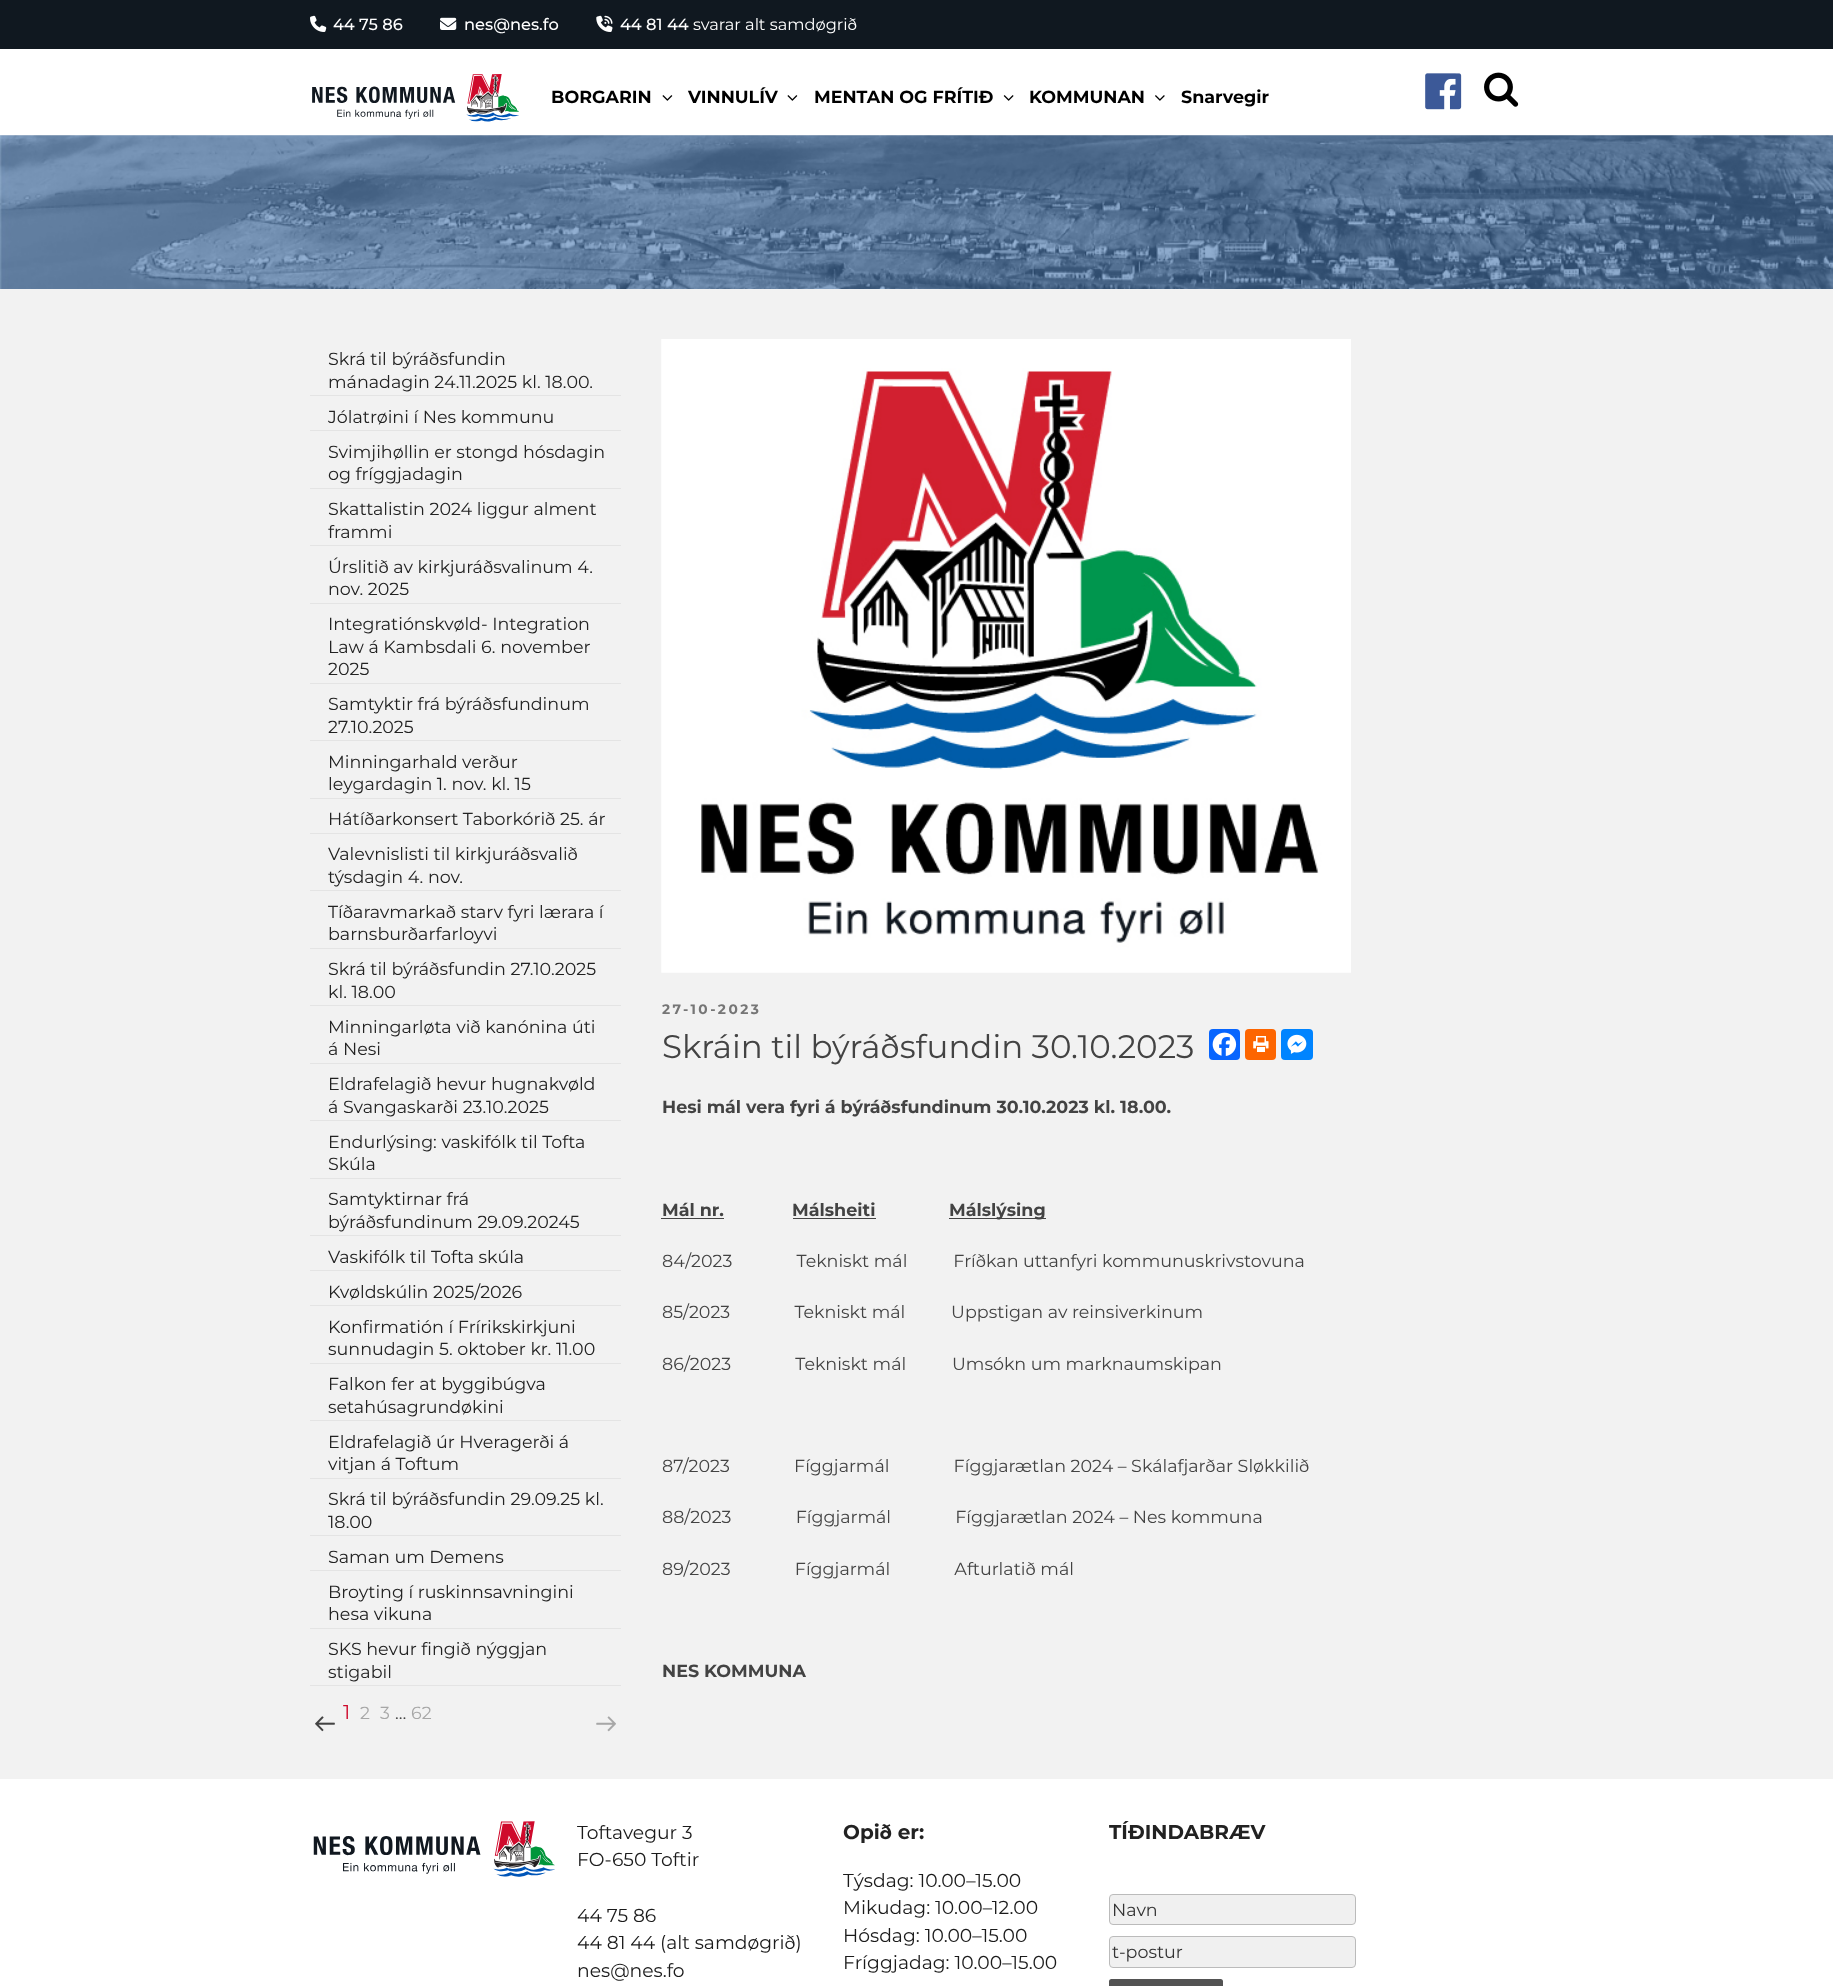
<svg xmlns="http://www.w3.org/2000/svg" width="1833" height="1986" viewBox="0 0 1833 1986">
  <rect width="100%" height="100%" fill="rgb(255,255,255)"/>
  <rect x="0" y="0" width="1833" height="49" fill="rgb(16,24,32)"/>
  <image x="310" y="15" width="17" height="17" href="pic1.png"/>
  <text x="333" y="30" font-family="Montserrat" font-size="16.25" font-weight="500" fill="rgb(255,255,255)">44 75 86</text>
  <image x="440" y="17" width="17" height="13" href="pic2.png"/>
  <text x="464" y="30" font-family="Montserrat" font-size="16.25" font-weight="500" fill="rgb(255,255,255)">nes@nes.fo</text>
  <image x="596" y="15" width="17" height="17" href="pic3.png"/>
  <text x="620" y="30" font-family="Montserrat" font-size="16.25" font-weight="500" fill="rgb(255,255,255)">44 81 44</text>
  <text x="693" y="30" font-family="Montserrat" font-size="16.25" fill="rgb(255,255,255)">svarar alt samdøgrið</text>
  <image x="312" y="74" width="207" height="48" href="pic4.png"/>
  <text x="551" y="103" font-family="Montserrat" font-size="17.5" font-weight="bold" fill="rgb(0,0,0)">BORGARIN</text>
  <image x="662" y="95" width="11" height="6" href="pic5.png"/>
  <text x="688" y="103" font-family="Montserrat" font-size="17.5" font-weight="bold" fill="rgb(0,0,0)">VINNULÍV</text>
  <image x="787" y="95" width="11" height="6" href="pic5.png"/>
  <text x="814" y="103" font-family="Montserrat" font-size="17.5" font-weight="bold" fill="rgb(0,0,0)">MENTAN OG FRÍTIÐ</text>
  <image x="1003" y="95" width="11" height="6" href="pic6.png"/>
  <text x="1029" y="103" font-family="Montserrat" font-size="17.5" font-weight="bold" fill="rgb(0,0,0)">KOMMUNAN</text>
  <image x="1155" y="95" width="10" height="6" href="pic7.png"/>
  <text x="1181" y="103" font-family="Montserrat" font-size="17.5" font-weight="bold" fill="rgb(0,0,0)">Snarvegir</text>
  <image x="1425" y="73" width="37" height="37" href="pic8.png"/>
  <image x="1484" y="72" width="35" height="35" href="pic9.png"/>
  <rect x="0" y="135" width="1833" height="1644" fill="rgb(242,242,242)"/>
  <image x="0" y="135" width="1833" height="154" href="pic10.png"/>
  <rect x="310" y="395" width="311" height="1" fill="rgb(228,228,228)"/>
  <g font-family="Montserrat" font-size="17.5" fill="rgb(34,34,34)">
    <text>
      <tspan x="328" y="365">Skrá til býráðsfundin</tspan>
      <tspan x="328" y="388">mánadagin 24.11.2025 kl. 18.00.</tspan>
    </text>
  </g>
  <rect x="310" y="430" width="311" height="1" fill="rgb(228,228,228)"/>
  <text x="328" y="423" font-family="Montserrat" font-size="17.5" fill="rgb(34,34,34)">Jólatrøini í Nes kommunu</text>
  <rect x="310" y="488" width="311" height="1" fill="rgb(228,228,228)"/>
  <g font-family="Montserrat" font-size="17.5" fill="rgb(34,34,34)">
    <text>
      <tspan x="328" y="458">Svimjihøllin er stongd hósdagin</tspan>
      <tspan x="328" y="480">og fríggjadagin</tspan>
    </text>
  </g>
  <rect x="310" y="545" width="311" height="1" fill="rgb(228,228,228)"/>
  <g font-family="Montserrat" font-size="17.5" fill="rgb(34,34,34)">
    <text>
      <tspan x="328" y="515">Skattalistin 2024 liggur alment</tspan>
      <tspan x="328" y="538">frammi</tspan>
    </text>
  </g>
  <rect x="310" y="603" width="311" height="1" fill="rgb(228,228,228)"/>
  <g font-family="Montserrat" font-size="17.5" fill="rgb(34,34,34)">
    <text>
      <tspan x="328" y="573">Úrslitið av kirkjuráðsvalinum 4.</tspan>
      <tspan x="328" y="595">nov. 2025</tspan>
    </text>
  </g>
  <rect x="310" y="683" width="311" height="1" fill="rgb(228,228,228)"/>
  <g font-family="Montserrat" font-size="17.5" fill="rgb(34,34,34)">
    <text>
      <tspan x="328" y="630">Integratiónskvøld- Integration</tspan>
      <tspan x="328" y="653">Law á Kambsdali 6. november</tspan>
      <tspan x="328" y="675">2025</tspan>
    </text>
  </g>
  <rect x="310" y="740" width="311" height="1" fill="rgb(228,228,228)"/>
  <g font-family="Montserrat" font-size="17.5" fill="rgb(34,34,34)">
    <text>
      <tspan x="328" y="710">Samtyktir frá býráðsfundinum</tspan>
      <tspan x="328" y="733">27.10.2025</tspan>
    </text>
  </g>
  <rect x="310" y="798" width="311" height="1" fill="rgb(228,228,228)"/>
  <g font-family="Montserrat" font-size="17.5" fill="rgb(34,34,34)">
    <text>
      <tspan x="328" y="768">Minningarhald verður</tspan>
      <tspan x="328" y="790">leygardagin 1. nov. kl. 15</tspan>
    </text>
  </g>
  <rect x="310" y="833" width="311" height="1" fill="rgb(228,228,228)"/>
  <text x="328" y="825" font-family="Montserrat" font-size="17.5" fill="rgb(34,34,34)">Hátíðarkonsert Taborkórið 25. ár</text>
  <rect x="310" y="890" width="311" height="1" fill="rgb(228,228,228)"/>
  <g font-family="Montserrat" font-size="17.5" fill="rgb(34,34,34)">
    <text>
      <tspan x="328" y="860">Valevnislisti til kirkjuráðsvalið</tspan>
      <tspan x="328" y="883">týsdagin 4. nov.</tspan>
    </text>
  </g>
  <rect x="310" y="948" width="311" height="1" fill="rgb(228,228,228)"/>
  <g font-family="Montserrat" font-size="17.5" fill="rgb(34,34,34)">
    <text>
      <tspan x="328" y="918">Tíðaravmarkað starv fyri lærara í</tspan>
      <tspan x="328" y="940">barnsburðarfarloyvi</tspan>
    </text>
  </g>
  <rect x="310" y="1005" width="311" height="1" fill="rgb(228,228,228)"/>
  <g font-family="Montserrat" font-size="17.5" fill="rgb(34,34,34)">
    <text>
      <tspan x="328" y="975">Skrá til býráðsfundin 27.10.2025</tspan>
      <tspan x="328" y="998">kl. 18.00</tspan>
    </text>
  </g>
  <rect x="310" y="1063" width="311" height="1" fill="rgb(228,228,228)"/>
  <g font-family="Montserrat" font-size="17.5" fill="rgb(34,34,34)">
    <text>
      <tspan x="328" y="1033">Minningarløta við kanónina úti</tspan>
      <tspan x="328" y="1055">á Nesi</tspan>
    </text>
  </g>
  <rect x="310" y="1120" width="311" height="1" fill="rgb(228,228,228)"/>
  <g font-family="Montserrat" font-size="17.5" fill="rgb(34,34,34)">
    <text>
      <tspan x="328" y="1090">Eldrafelagið hevur hugnakvøld</tspan>
      <tspan x="328" y="1113">á Svangaskarði 23.10.2025</tspan>
    </text>
  </g>
  <rect x="310" y="1178" width="311" height="1" fill="rgb(228,228,228)"/>
  <g font-family="Montserrat" font-size="17.5" fill="rgb(34,34,34)">
    <text>
      <tspan x="328" y="1148">Endurlýsing: vaskifólk til Tofta</tspan>
      <tspan x="328" y="1170">Skúla</tspan>
    </text>
  </g>
  <rect x="310" y="1235" width="311" height="1" fill="rgb(228,228,228)"/>
  <g font-family="Montserrat" font-size="17.5" fill="rgb(34,34,34)">
    <text>
      <tspan x="328" y="1205">Samtyktirnar frá</tspan>
      <tspan x="328" y="1228">býráðsfundinum 29.09.20245</tspan>
    </text>
  </g>
  <rect x="310" y="1270" width="311" height="1" fill="rgb(228,228,228)"/>
  <text x="328" y="1263" font-family="Montserrat" font-size="17.5" fill="rgb(34,34,34)">Vaskifólk til Tofta skúla</text>
  <rect x="310" y="1305" width="311" height="1" fill="rgb(228,228,228)"/>
  <text x="328" y="1298" font-family="Montserrat" font-size="17.5" fill="rgb(34,34,34)">Kvøldskúlin 2025/2026</text>
  <rect x="310" y="1363" width="311" height="1" fill="rgb(228,228,228)"/>
  <g font-family="Montserrat" font-size="17.5" fill="rgb(34,34,34)">
    <text>
      <tspan x="328" y="1333">Konfirmatión í Frírikskirkjuni</tspan>
      <tspan x="328" y="1355">sunnudagin 5. oktober kr. 11.00</tspan>
    </text>
  </g>
  <rect x="310" y="1420" width="311" height="1" fill="rgb(228,228,228)"/>
  <g font-family="Montserrat" font-size="17.5" fill="rgb(34,34,34)">
    <text>
      <tspan x="328" y="1390">Falkon fer at byggibúgva</tspan>
      <tspan x="328" y="1413">setahúsagrundøkini</tspan>
    </text>
  </g>
  <rect x="310" y="1478" width="311" height="1" fill="rgb(228,228,228)"/>
  <g font-family="Montserrat" font-size="17.5" fill="rgb(34,34,34)">
    <text>
      <tspan x="328" y="1448">Eldrafelagið úr Hveragerði á</tspan>
      <tspan x="328" y="1470">vitjan á Toftum</tspan>
    </text>
  </g>
  <rect x="310" y="1535" width="311" height="1" fill="rgb(228,228,228)"/>
  <g font-family="Montserrat" font-size="17.5" fill="rgb(34,34,34)">
    <text>
      <tspan x="328" y="1505">Skrá til býráðsfundin 29.09.25 kl.</tspan>
      <tspan x="328" y="1528">18.00</tspan>
    </text>
  </g>
  <rect x="310" y="1570" width="311" height="1" fill="rgb(228,228,228)"/>
  <text x="328" y="1563" font-family="Montserrat" font-size="17.5" fill="rgb(34,34,34)">Saman um Demens</text>
  <rect x="310" y="1628" width="311" height="1" fill="rgb(228,228,228)"/>
  <g font-family="Montserrat" font-size="17.5" fill="rgb(34,34,34)">
    <text>
      <tspan x="328" y="1598">Broyting í ruskinnsavningini</tspan>
      <tspan x="328" y="1620">hesa vikuna</tspan>
    </text>
  </g>
  <rect x="310" y="1685" width="311" height="1" fill="rgb(228,228,228)"/>
  <g font-family="Montserrat" font-size="17.5" fill="rgb(34,34,34)">
    <text>
      <tspan x="328" y="1655">SKS hevur fingið nýggjan</tspan>
      <tspan x="328" y="1678">stigabil</tspan>
    </text>
  </g>
  <text x="343" y="1719" font-family="Montserrat" font-size="20" fill="rgb(207,10,44)">1</text>
  <g font-family="Montserrat" font-size="17.5" fill="rgb(167,167,167)">
    <text x="360" y="1719">2</text>
    <text x="380" y="1719">3</text>
    <text x="411" y="1719">62</text>
  </g>
  <image x="315" y="1716" width="20" height="16" href="pic11.png"/>
  <text x="395" y="1719" font-family="Montserrat" font-size="17.5" fill="rgb(67,67,67)">…</text>
  <image x="596" y="1716" width="20" height="16" href="pic12.png"/>
  <image x="661" y="339" width="690" height="634" href="pic13.png"/>
  <text x="662" y="1014" font-family="Montserrat" font-size="13.75" font-weight="bold" letter-spacing="2.5" fill="rgb(118,118,118)">27-10-2023</text>
  <text x="662" y="1058" font-family="Montserrat" font-size="32.5" fill="rgb(67,67,67)">Skráin til býráðsfundin 30.10.2023</text>
  <rect x="1209" y="1029" width="31" height="31" rx="4" fill="rgb(7,101,254)"/>
  <image x="1212" y="1032" width="25" height="24" href="pic14.png"/>
  <rect x="1245" y="1029" width="31" height="31" rx="4" fill="rgb(253,101,0)"/>
  <image x="1253" y="1036" width="16" height="16" href="pic15.png"/>
  <rect x="1281" y="1029" width="32" height="31" rx="4" fill="rgb(0,132,255)"/>
  <image x="1287" y="1034" width="20" height="20" href="pic16.png"/>
  <g font-family="Montserrat" font-size="17.5" font-weight="bold" fill="rgb(67,67,67)">
    <text x="662" y="1113">Hesi mál vera fyri á býráðsfundinum 30.10.2023 kl. 18.00.</text>
    <text x="662" y="1216">Mál nr.</text>
  </g>
  <rect x="661" y="1218" width="63" height="1" fill="rgb(67,67,67)"/>
  <text x="792" y="1216" font-family="Montserrat" font-size="17.5" font-weight="bold" fill="rgb(67,67,67)">Málsheiti</text>
  <rect x="793" y="1218" width="83" height="1" fill="rgb(67,67,67)"/>
  <rect x="949" y="1218" width="97" height="1" fill="rgb(67,67,67)"/>
  <text x="949" y="1216" font-family="Montserrat" font-size="17.5" font-weight="bold" fill="rgb(67,67,67)">Málslýsing</text>
  <g font-family="Montserrat" font-size="17.5" fill="rgb(67,67,67)">
    <text x="662" y="1267" xml:space="preserve">84/2023              Tekniskt mál          Fríðkan uttanfyri kommunuskrivstovuna</text>
    <text x="662" y="1318" xml:space="preserve">85/2023              Tekniskt mál          Uppstigan av reinsiverkinum</text>
    <text x="662" y="1370" xml:space="preserve">86/2023              Tekniskt mál          Umsókn um marknaumskipan</text>
    <text x="662" y="1472" xml:space="preserve">87/2023              Fíggjarmál              Fíggjarætlan 2024 – Skálafjarðar Sløkkilið</text>
    <text x="662" y="1523" xml:space="preserve">88/2023              Fíggjarmál              Fíggjarætlan 2024 – Nes kommuna</text>
    <text x="662" y="1575" xml:space="preserve">89/2023              Fíggjarmál              Afturlatið mál</text>
  </g>
  <text x="662" y="1677" font-family="Montserrat" font-size="17.5" font-weight="bold" fill="rgb(67,67,67)">NES KOMMUNA</text>
  <image x="313" y="1821" width="242" height="56" href="pic17.png"/>
  <g font-family="Montserrat" font-size="18.75" fill="rgb(27,27,27)">
    <text>
      <tspan x="577" y="1839">Toftavegur 3</tspan>
      <tspan x="577" y="1866">FO-650 Toftir</tspan>
    </text>
    <text>
      <tspan x="577" y="1922">44 75 86</tspan>
      <tspan x="577" y="1949">44 81 44 (alt samdøgrið)</tspan>
      <tspan x="577" y="1977">nes@nes.fo</tspan>
    </text>
  </g>
  <text x="843" y="1839" font-family="Montserrat" font-size="20" font-weight="bold" fill="rgb(34,34,34)">Opið er:</text>
  <g font-family="Montserrat" font-size="18.75" fill="rgb(27,27,27)">
    <text>
      <tspan x="843" y="1887">Týsdag: 10.00–15.00</tspan>
      <tspan x="843" y="1914">Mikudag: 10.00–12.00</tspan>
      <tspan x="843" y="1942">Hósdag: 10.00–15.00</tspan>
      <tspan x="843" y="1969">Fríggjadag: 10.00–15.00</tspan>
    </text>
  </g>
  <text x="1109" y="1839" font-family="Montserrat" font-size="20" font-weight="bold" fill="rgb(34,34,34)">TÍÐINDABRÆV</text>
  <rect x="1109.5" y="1894.5" width="246" height="30" rx="3.5" fill="rgb(240,240,240)" stroke="rgb(187,187,187)"/>
  <text x="1112" y="1916" font-family="Montserrat" font-size="17.5" fill="rgb(51,51,51)">Navn</text>
  <rect x="1109.5" y="1936.5" width="246" height="31" rx="3.5" fill="rgb(240,240,240)" stroke="rgb(187,187,187)"/>
  <text x="1112" y="1958" font-family="Montserrat" font-size="17.5" fill="rgb(51,51,51)">t-postur</text>
  <rect x="1109" y="1979" width="114" height="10" rx="2.5" fill="rgb(83,83,83)"/>
</svg>
